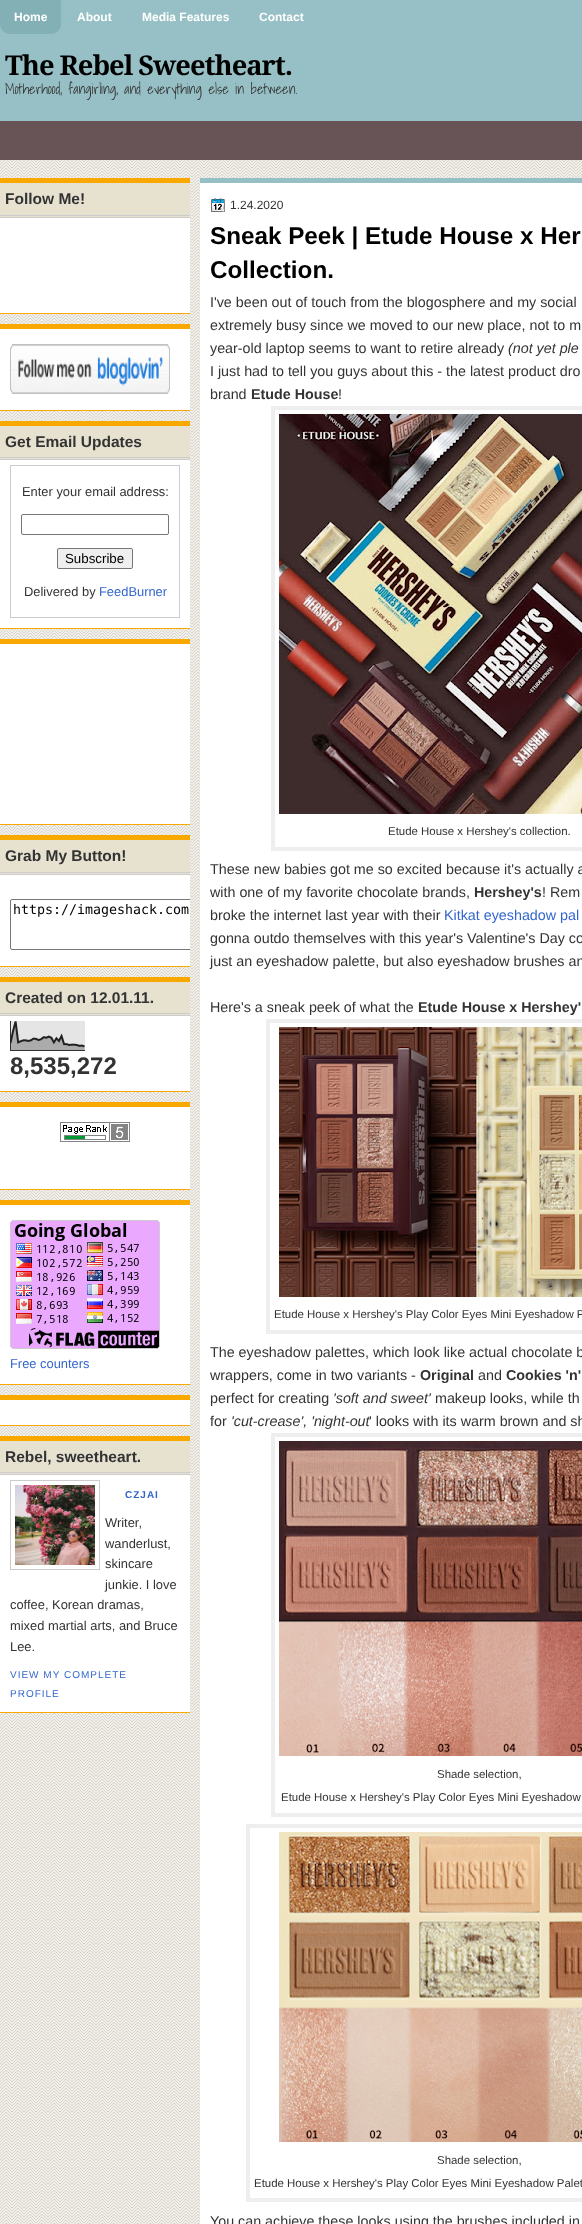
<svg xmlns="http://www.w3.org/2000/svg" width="582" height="2224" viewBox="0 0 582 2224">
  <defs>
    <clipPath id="clip1"><rect x="0" y="173" width="190" height="1550"/></clipPath>
  </defs>
  <rect width="100%" height="100%" fill="rgb(255,255,255)"/>
  <image x="0" y="160" width="582" height="2064" href="pic1.png"/>
  <image x="0" y="0" width="582" height="160" href="pic2.png"/>
  <path d="M0 0H61V24C61 29.5 56.5 34 51 34H10C4.5 34 0 29.5 0 24Z" fill="rgb(130,176,181)"/>
  <g font-family="Liberation Sans" font-size="12" font-weight="bold" fill="rgb(255,255,255)">
    <text x="14" y="21">Home</text>
    <text x="77" y="21">About</text>
    <text x="142" y="21">Media Features</text>
    <text x="259" y="21">Contact</text>
  </g>
  <text x="5" y="75" font-family="Droid Serif" font-size="27.25" font-weight="bold" letter-spacing="-1" fill="rgb(0,0,0)">The Rebel Sweetheart.</text>
  <text x="5" y="94" font-family="Shadows Into Light" font-size="14.3" font-weight="300" fill="rgb(51,51,51)">Motherhood, fangirling, and everything else in between.</text>
  <rect x="0" y="218" width="190" height="95" fill="rgb(255,255,255)"/>
  <rect x="0" y="178" width="190" height="5" fill="rgb(249,168,0)"/>
  <rect x="0" y="313" width="190" height="1" fill="rgb(249,168,0)"/>
  <rect x="0" y="183" width="190" height="34" fill="rgb(231,226,208)"/>
  <rect x="0" y="215" width="190" height="1" fill="rgb(204,204,204)"/>
  <rect x="0" y="217" width="190" height="1" fill="rgb(204,204,204)"/>
  <text x="5" y="204" font-family="Liberation Sans" font-size="15.5" font-weight="bold" fill="rgb(51,51,51)">Follow Me!</text>
  <rect x="0" y="329" width="190" height="81" fill="rgb(255,255,255)"/>
  <rect x="0" y="324" width="190" height="5" fill="rgb(249,168,0)"/>
  <rect x="0" y="410" width="190" height="1" fill="rgb(249,168,0)"/>
  <image x="10" y="344" width="160" height="50" href="pic3.png"/>
  <rect x="0" y="460" width="190" height="168" fill="rgb(255,255,255)"/>
  <rect x="0" y="421" width="190" height="5" fill="rgb(249,168,0)"/>
  <rect x="0" y="628" width="190" height="1" fill="rgb(249,168,0)"/>
  <rect x="0" y="426" width="190" height="33" fill="rgb(231,226,208)"/>
  <rect x="0" y="457" width="190" height="1" fill="rgb(204,204,204)"/>
  <rect x="0" y="459" width="190" height="1" fill="rgb(204,204,204)"/>
  <text x="5" y="447" font-family="Liberation Sans" font-size="15.5" font-weight="bold" fill="rgb(51,51,51)">Get Email Updates</text>
  <rect x="10.5" y="465.5" width="169" height="152" fill="none" stroke="rgb(204,204,204)"/>
  <text x="22" y="496" font-family="Liberation Sans" font-size="12.9" fill="rgb(51,51,51)">Enter your email address:</text>
  <rect x="21.5" y="514.5" width="147" height="20" rx="1.5" fill="none" stroke="rgb(118,118,118)"/>
  <rect x="57.5" y="548.5" width="75" height="20" rx="1.5" fill="rgb(239,239,239)" stroke="rgb(118,118,118)"/>
  <text x="65" y="563" font-family="Liberation Sans" font-size="13.3" fill="rgb(0,0,0)">Subscribe</text>
  <text x="24" y="596" font-family="Liberation Sans" font-size="12.9" fill="rgb(51,51,51)">Delivered by</text>
  <text x="99" y="596" font-family="Liberation Sans" font-size="12.9" fill="rgb(51,102,204)">FeedBurner</text>
  <rect x="0" y="644" width="190" height="180" fill="rgb(255,255,255)"/>
  <rect x="0" y="639" width="190" height="5" fill="rgb(249,168,0)"/>
  <rect x="0" y="824" width="190" height="1" fill="rgb(249,168,0)"/>
  <rect x="0" y="875" width="190" height="91" fill="rgb(255,255,255)"/>
  <rect x="0" y="835" width="190" height="5" fill="rgb(249,168,0)"/>
  <rect x="0" y="966" width="190" height="1" fill="rgb(249,168,0)"/>
  <rect x="0" y="840" width="190" height="34" fill="rgb(231,226,208)"/>
  <rect x="0" y="872" width="190" height="1" fill="rgb(204,204,204)"/>
  <rect x="0" y="874" width="190" height="1" fill="rgb(204,204,204)"/>
  <text x="5" y="861" font-family="Liberation Sans" font-size="15.5" font-weight="bold" fill="rgb(51,51,51)">Grab My Button!</text>
  <g clip-path="url(#clip1)">
    <rect x="10.5" y="899.5" width="181" height="50" rx="1.5" fill="none" stroke="rgb(118,118,118)"/>
  </g>
  <text x="13" y="914" font-family="DejaVu Sans Mono" font-size="13.3" fill="rgb(0,0,0)">https://imageshack.com</text>
  <rect x="0" y="1016" width="190" height="75" fill="rgb(255,255,255)"/>
  <rect x="0" y="977" width="190" height="5" fill="rgb(249,168,0)"/>
  <rect x="0" y="1091" width="190" height="1" fill="rgb(249,168,0)"/>
  <rect x="0" y="982" width="190" height="33" fill="rgb(231,226,208)"/>
  <rect x="0" y="1013" width="190" height="1" fill="rgb(204,204,204)"/>
  <rect x="0" y="1015" width="190" height="1" fill="rgb(204,204,204)"/>
  <text x="5" y="1003" font-family="Liberation Sans" font-size="15.5" font-weight="bold" fill="rgb(51,51,51)">Created on 12.01.11.</text>
  <image x="10" y="1021" width="75" height="30" href="pic4.png"/>
  <text x="10" y="1074" font-family="Liberation Sans" font-size="24" font-weight="bold" fill="rgb(51,51,51)">8,535,272</text>
  <rect x="0" y="1107" width="190" height="82" fill="rgb(255,255,255)"/>
  <rect x="0" y="1102" width="190" height="5" fill="rgb(249,168,0)"/>
  <rect x="0" y="1189" width="190" height="1" fill="rgb(249,168,0)"/>
  <image x="60" y="1122" width="70" height="20" href="pic5.png"/>
  <rect x="0" y="1205" width="190" height="179" fill="rgb(255,255,255)"/>
  <rect x="0" y="1200" width="190" height="5" fill="rgb(249,168,0)"/>
  <rect x="0" y="1384" width="190" height="1" fill="rgb(249,168,0)"/>
  <image x="10" y="1220" width="150" height="129" href="pic6.png"/>
  <text x="10" y="1368" font-family="Liberation Sans" font-size="12.9" fill="rgb(51,102,204)">Free counters</text>
  <rect x="0" y="1400" width="190" height="25" fill="rgb(255,255,255)"/>
  <rect x="0" y="1395" width="190" height="5" fill="rgb(249,168,0)"/>
  <rect x="0" y="1425" width="190" height="1" fill="rgb(249,168,0)"/>
  <rect x="0" y="1475" width="190" height="237" fill="rgb(255,255,255)"/>
  <rect x="0" y="1436" width="190" height="5" fill="rgb(249,168,0)"/>
  <rect x="0" y="1712" width="190" height="1" fill="rgb(249,168,0)"/>
  <rect x="0" y="1441" width="190" height="33" fill="rgb(231,226,208)"/>
  <rect x="0" y="1472" width="190" height="1" fill="rgb(204,204,204)"/>
  <rect x="0" y="1474" width="190" height="1" fill="rgb(204,204,204)"/>
  <text x="5" y="1462" font-family="Liberation Sans" font-size="15.5" font-weight="bold" fill="rgb(51,51,51)">Rebel, sweetheart.</text>
  <rect x="10.5" y="1480.5" width="89" height="89" fill="none" stroke="rgb(204,204,204)"/>
  <image x="15" y="1485" width="80" height="80" href="pic7.png"/>
  <text x="125" y="1498" font-family="Liberation Sans" font-size="10" font-weight="bold" letter-spacing="1" fill="rgb(51,102,204)">CZJAI</text>
  <g font-family="Liberation Sans" font-size="12.9" fill="rgb(51,51,51)">
    <text>
      <tspan x="105" y="1527">Writer,</tspan>
      <tspan x="105" y="1548">wanderlust,</tspan>
      <tspan x="105" y="1568">skincare</tspan>
      <tspan x="105" y="1589">junkie. I love</tspan>
    </text>
    <text>
      <tspan x="10" y="1609">coffee, Korean dramas,</tspan>
      <tspan x="10" y="1630">mixed martial arts, and Bruce</tspan>
      <tspan x="10" y="1651">Lee.</tspan>
    </text>
  </g>
  <g font-family="Liberation Sans" font-size="10" letter-spacing="1" fill="rgb(51,102,204)">
    <text>
      <tspan x="10" y="1678">VIEW MY COMPLETE</tspan>
      <tspan x="10" y="1697">PROFILE</tspan>
    </text>
  </g>
  <rect x="200" y="183" width="382" height="2041" fill="rgb(255,255,255)"/>
  <rect x="200" y="178" width="382" height="5" fill="rgb(150,192,197)"/>
  <image x="211" y="198" width="14" height="14" href="pic8.png"/>
  <text x="230" y="209" font-family="Liberation Sans" font-size="12" fill="rgb(51,51,51)">1.24.2020</text>
  <g font-family="Liberation Sans" font-size="24.25" font-weight="bold" fill="rgb(0,0,0)">
    <text>
      <tspan x="210" y="244">Sneak Peek | Etude House x Her</tspan>
      <tspan x="210" y="278">Collection.</tspan>
    </text>
  </g>
  <g font-family="Liberation Sans" font-size="14.3" fill="rgb(51,51,51)">
    <text>
      <tspan x="210" y="307">I've been out of touch from the blogosphere and my social</tspan>
      <tspan x="210" y="330">extremely busy since we moved to our new place, not to m</tspan>
      <tspan x="210" y="353">year-old laptop seems to want to retire already</tspan>
    </text>
  </g>
  <text x="508" y="353" font-family="Liberation Sans" font-size="14.3" font-style="italic" fill="rgb(51,51,51)">(not yet ple</text>
  <g font-family="Liberation Sans" font-size="14.3" fill="rgb(51,51,51)">
    <text>
      <tspan x="210" y="376">I just had to tell you guys about this - the latest product dro</tspan>
      <tspan x="210" y="399">brand</tspan>
    </text>
  </g>
  <text x="251" y="399" font-family="Liberation Sans" font-size="14.3" font-weight="bold" fill="rgb(51,51,51)">Etude House</text>
  <text x="338" y="399" font-family="Liberation Sans" font-size="14.3" fill="rgb(51,51,51)">!</text>
  <rect x="273" y="408" width="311" height="441" fill="none" stroke="rgb(238,238,238)" stroke-width="4"/>
  <image x="279" y="414" width="303" height="400" href="pic9.png"/>
  <text x="388" y="835" font-family="Liberation Sans" font-size="11.45" fill="rgb(51,51,51)">Etude House x Hershey's collection.</text>
  <g font-family="Liberation Sans" font-size="14.3" fill="rgb(51,51,51)">
    <text>
      <tspan x="210" y="874">These new babies got me so excited because it's actually a</tspan>
      <tspan x="210" y="897">with one of my favorite chocolate brands,</tspan>
    </text>
  </g>
  <text x="474" y="897" font-family="Liberation Sans" font-size="14.3" font-weight="bold" fill="rgb(51,51,51)">Hershey's</text>
  <g font-family="Liberation Sans" font-size="14.3" fill="rgb(51,51,51)">
    <text x="542" y="897">! Rem</text>
    <text x="210" y="920">broke the internet last year with their</text>
  </g>
  <text x="444" y="920" font-family="Liberation Sans" font-size="14.3" fill="rgb(51,102,204)">Kitkat eyeshadow pal</text>
  <g font-family="Liberation Sans" font-size="14.3" fill="rgb(51,51,51)">
    <text>
      <tspan x="210" y="943">gonna outdo themselves with this year's Valentine's Day co</tspan>
      <tspan x="210" y="966">just an eyeshadow palette, but also eyeshadow brushes an</tspan>
    </text>
    <text x="210" y="1012">Here's a sneak peek of what the</text>
  </g>
  <text x="418" y="1012" font-family="Liberation Sans" font-size="14.3" font-weight="bold" fill="rgb(51,51,51)">Etude House x Hershey'</text>
  <rect x="268" y="1021" width="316" height="311" fill="none" stroke="rgb(238,238,238)" stroke-width="4"/>
  <image x="279" y="1027" width="303" height="270" href="pic10.png"/>
  <text x="274" y="1318" font-family="Liberation Sans" font-size="11.45" fill="rgb(51,51,51)">Etude House x Hershey's Play Color Eyes Mini Eyeshadow P</text>
  <g font-family="Liberation Sans" font-size="14.3" fill="rgb(51,51,51)">
    <text>
      <tspan x="210" y="1357">The eyeshadow palettes, which look like actual chocolate b</tspan>
      <tspan x="210" y="1380">wrappers, come in two variants -</tspan>
    </text>
  </g>
  <text x="420" y="1380" font-family="Liberation Sans" font-size="14.3" font-weight="bold" fill="rgb(51,51,51)">Original</text>
  <text x="478" y="1380" font-family="Liberation Sans" font-size="14.3" fill="rgb(51,51,51)">and</text>
  <text x="506" y="1380" font-family="Liberation Sans" font-size="14.3" font-weight="bold" fill="rgb(51,51,51)">Cookies 'n'</text>
  <text x="210" y="1403" font-family="Liberation Sans" font-size="14.3" fill="rgb(51,51,51)">perfect for creating</text>
  <text x="333" y="1403" font-family="Liberation Sans" font-size="14.3" font-style="italic" fill="rgb(51,51,51)">'soft and sweet'</text>
  <g font-family="Liberation Sans" font-size="14.3" fill="rgb(51,51,51)">
    <text x="435" y="1403">makeup looks, while th</text>
    <text x="210" y="1426">for</text>
  </g>
  <text x="231" y="1426" font-family="Liberation Sans" font-size="14.3" font-style="italic" fill="rgb(51,51,51)">'cut-crease', 'night-out</text>
  <text x="369" y="1426" font-family="Liberation Sans" font-size="14.3" fill="rgb(51,51,51)">' looks with its warm brown and sh</text>
  <rect x="273" y="1435" width="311" height="380" fill="none" stroke="rgb(238,238,238)" stroke-width="4"/>
  <image x="279" y="1441" width="303" height="315" href="pic11.png"/>
  <g font-family="Liberation Sans" font-size="11.45" fill="rgb(51,51,51)">
    <text x="437" y="1778">Shade selection,</text>
    <text x="281" y="1801">Etude House x Hershey's Play Color Eyes Mini Eyeshadow</text>
  </g>
  <rect x="248" y="1826" width="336" height="374" fill="none" stroke="rgb(238,238,238)" stroke-width="4"/>
  <image x="279" y="1832" width="303" height="310" href="pic12.png"/>
  <g font-family="Liberation Sans" font-size="11.45" fill="rgb(51,51,51)">
    <text x="437" y="2164">Shade selection,</text>
    <text x="254" y="2187">Etude House x Hershey's Play Color Eyes Mini Eyeshadow Palet</text>
  </g>
  <text x="210" y="2226" font-family="Liberation Sans" font-size="14.3" fill="rgb(51,51,51)">You can achieve these looks using the brushes included in</text>
</svg>
